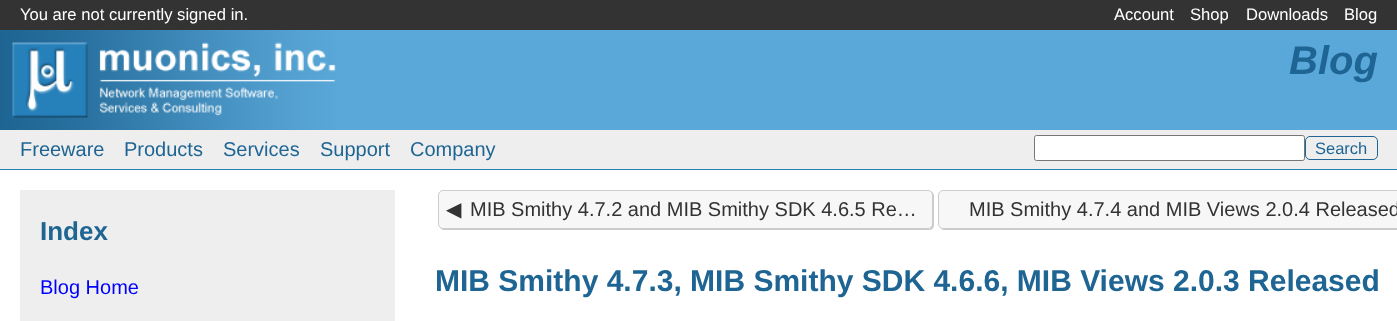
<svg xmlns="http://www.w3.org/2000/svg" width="1397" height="321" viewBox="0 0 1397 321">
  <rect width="100%" height="100%" fill="rgb(90,168,217)"/>
  <rect x="0" y="0" width="1397" height="30" fill="rgb(51,51,51)"/>
  <g font-family="Liberation Sans" font-size="16.6" fill="rgb(255,255,255)">
    <text x="20" y="20">You are not currently signed in.</text>
    <text x="1114" y="20">Account</text>
    <text x="1190" y="20">Shop</text>
    <text x="1246" y="20">Downloads</text>
    <text x="1344" y="20">Blog</text>
  </g>
  <image x="0" y="30" width="336" height="100" href="pic1.png"/>
  <text x="1289" y="74" font-family="Liberation Sans" font-size="40" font-weight="bold" font-style="italic" fill="rgb(30,101,147)">Blog</text>
  <rect x="0" y="130" width="1397" height="39" fill="rgb(238,238,238)"/>
  <rect x="0" y="169" width="1397" height="1" fill="rgb(38,128,186)"/>
  <g font-family="Liberation Sans" font-size="20" fill="rgb(30,101,147)">
    <text x="20" y="156">Freeware</text>
    <text x="124" y="156">Products</text>
    <text x="223" y="156">Services</text>
    <text x="320" y="156">Support</text>
    <text x="410" y="156">Company</text>
  </g>
  <rect x="1034.5" y="135.5" width="270" height="25" rx="2" fill="rgb(255,255,255)" stroke="rgb(118,118,118)"/>
  <rect x="1305.5" y="136.5" width="72" height="23" rx="4.5" fill="none" stroke="rgb(30,101,147)"/>
  <text x="1315" y="154" font-family="Liberation Sans" font-size="16.5" fill="rgb(30,101,147)">Search</text>
  <rect x="0" y="170" width="1397" height="151" fill="rgb(255,255,255)"/>
  <rect x="20" y="190" width="375" height="131" fill="rgb(238,238,238)"/>
  <text x="40" y="240" font-family="Liberation Sans" font-size="26" font-weight="bold" fill="rgb(30,101,147)">Index</text>
  <text x="40" y="294" font-family="Liberation Sans" font-size="20" fill="rgb(0,0,255)">Blog Home</text>
  <path d="M440 228C441 229 442 230 444 230H929C932 230 934 228 934 225V196C934 194 933 192 931 191C932 192 932 194 932 195V224C932 227 930 229 928 229H442Z" fill="rgb(204,204,204)"/>
  <rect x="438.5" y="190.5" width="494" height="38" rx="4.5" fill="rgb(247,247,247)" stroke="rgb(204,204,204)"/>
  <text x="446" y="216" font-family="DejaVu Sans" font-size="20" fill="rgb(196,196,196)">◀</text>
  <text x="446" y="216" font-family="DejaVu Sans" font-size="20" fill="rgb(51,51,51)">◀</text>
  <text x="470" y="216" font-family="Liberation Sans" font-size="20" fill="rgb(51,51,51)">MIB Smithy 4.7.2 and MIB Smithy SDK 4.6.5 Re…</text>
  <path d="M940 228C941 229 942 230 944 230H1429C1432 230 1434 228 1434 225V196C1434 194 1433 192 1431 191C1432 192 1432 194 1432 195V224C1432 227 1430 229 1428 229H942Z" fill="rgb(204,204,204)"/>
  <rect x="938.5" y="190.5" width="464" height="38" rx="4.5" fill="rgb(247,247,247)" stroke="rgb(204,204,204)"/>
  <text x="969" y="216" font-family="Liberation Sans" font-size="20" fill="rgb(51,51,51)">MIB Smithy 4.7.4 and MIB Views 2.0.4 Released</text>
  <text x="435" y="291" font-family="Liberation Sans" font-size="30" font-weight="bold" fill="rgb(30,101,147)">MIB Smithy 4.7.3, MIB Smithy SDK 4.6.6, MIB Views 2.0.3 Released</text>
</svg>
